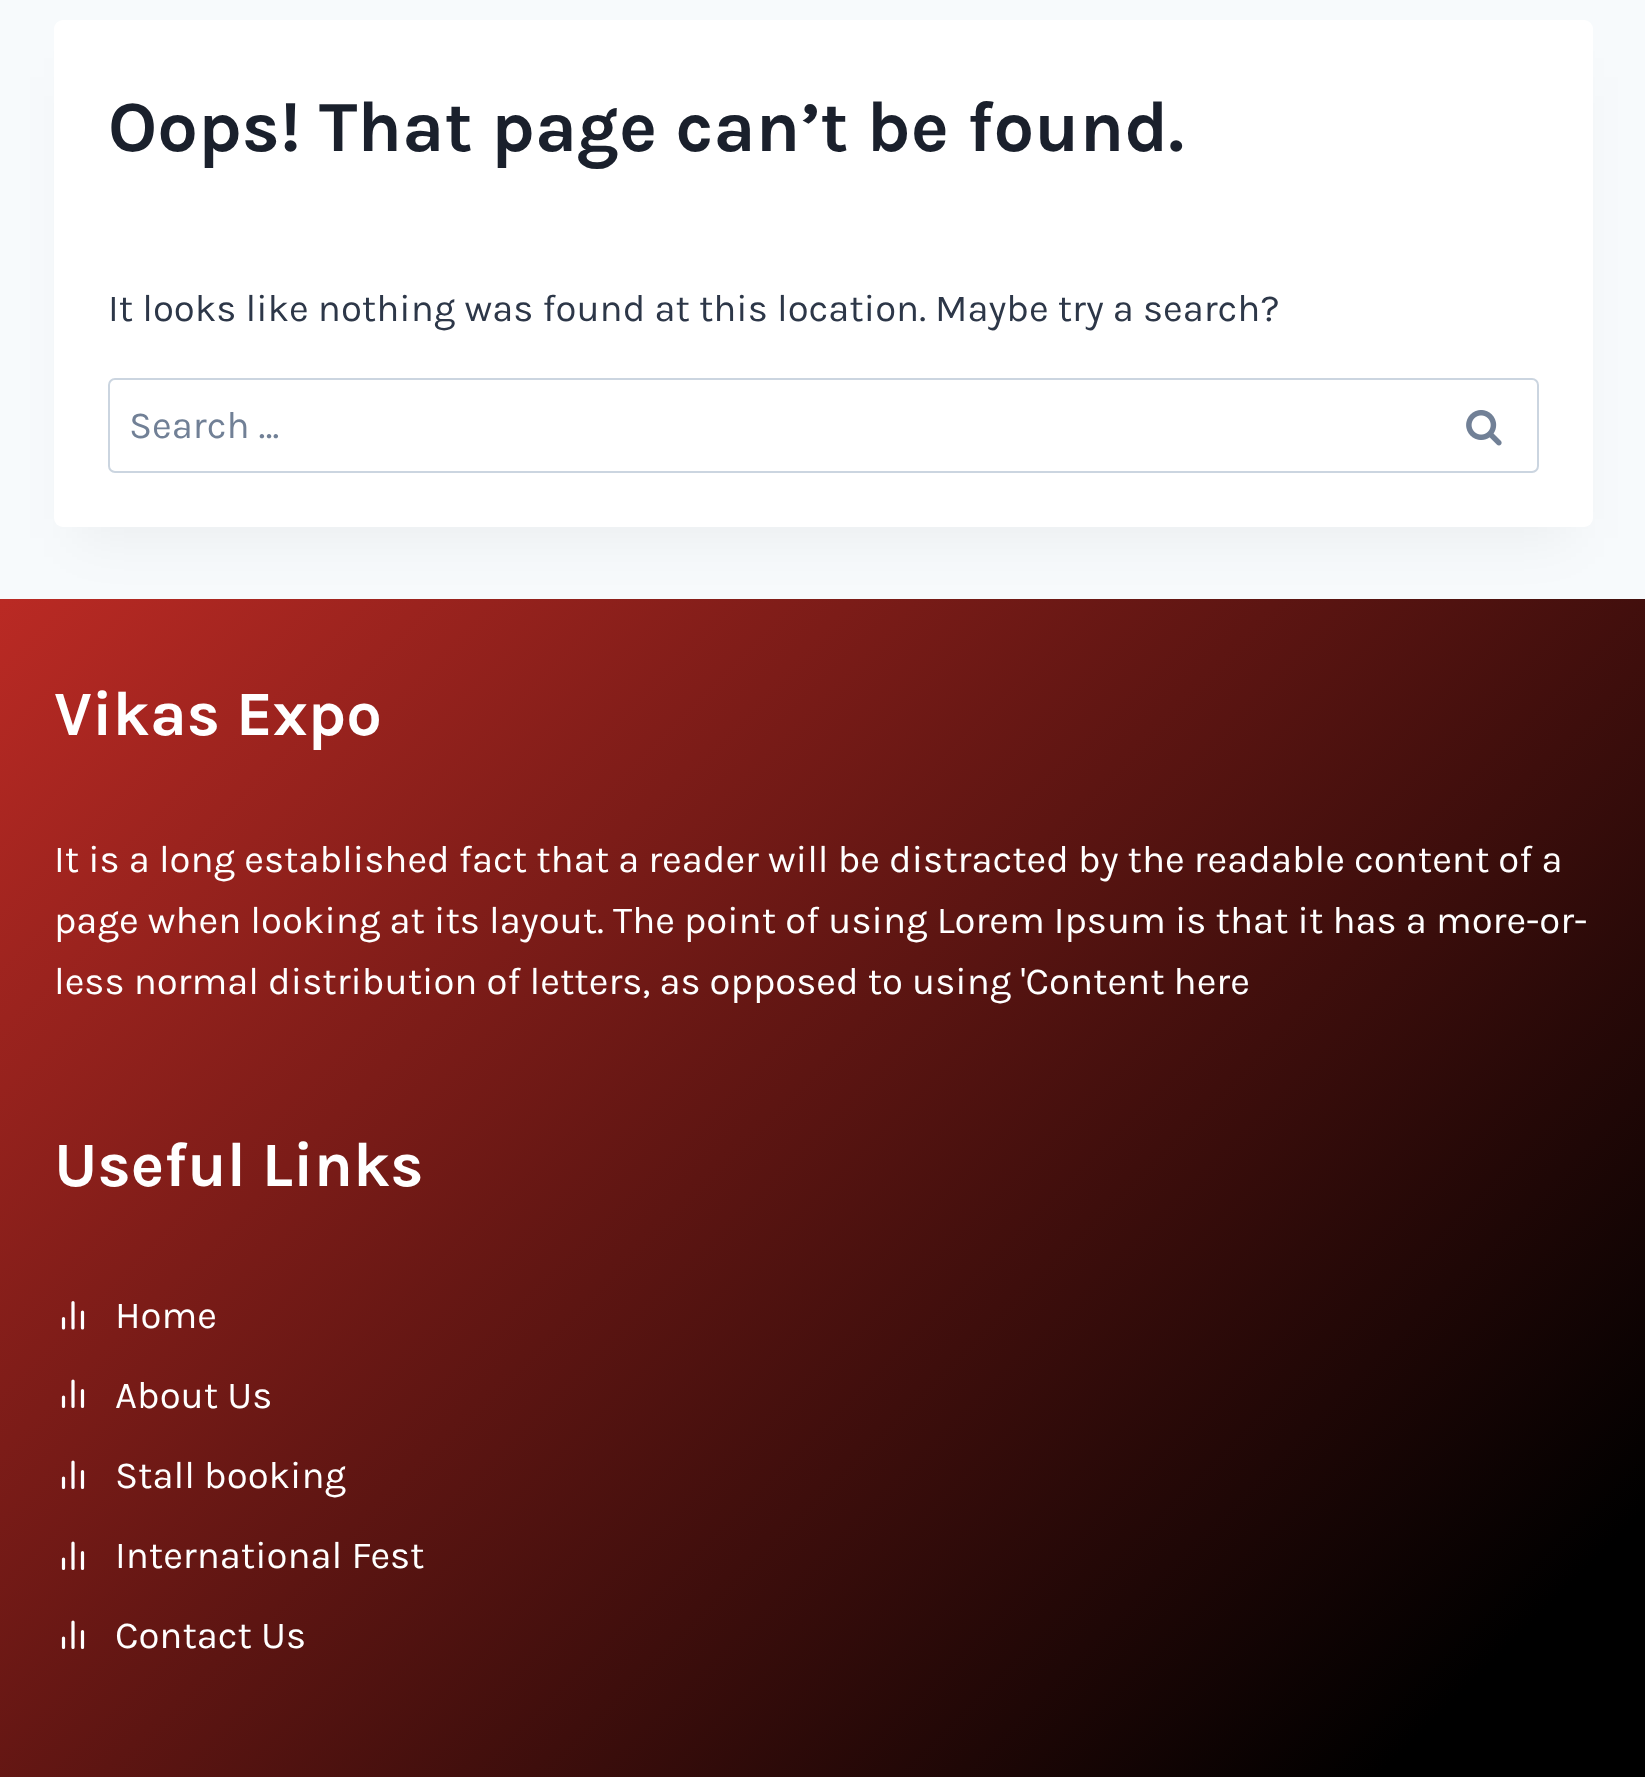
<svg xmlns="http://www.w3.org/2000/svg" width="1645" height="1777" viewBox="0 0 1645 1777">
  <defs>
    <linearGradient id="g1" gradientUnits="userSpaceOnUse" x1="-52" y1="650" x2="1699" y2="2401"><stop offset="0" stop-color="rgb(186,42,36)"/><stop offset="0.73" stop-color="rgb(0,0,0)"/></linearGradient>
  </defs>
  <rect width="100%" height="100%" fill="rgb(247,250,252)"/>
  <rect x="0" y="599" width="1645" height="1178" fill="url(#g1)"/>
  <rect x="77" y="77" width="1494" height="461" fill="rgba(0,0,0,0.05)" filter="blur(28px)"/>
  <rect x="54" y="20" width="1539" height="507" rx="9" fill="rgb(255,255,255)"/>
  <text x="108" y="151" font-family="Karla" font-size="72" font-weight="bold" fill="rgb(26,32,44)">Oops! That page can’t be found.</text>
  <text x="108" y="321" font-family="Karla" font-size="38.25" fill="rgb(45,55,72)">It looks like nothing was found at this location. Maybe try a search?</text>
  <rect x="109" y="379" width="1429" height="93" rx="6" fill="none" stroke="rgb(203,213,224)" stroke-width="2"/>
  <text x="129" y="438" font-family="Karla" font-size="38.25" fill="rgb(113,128,150)">Search …</text>
  <image x="1466" y="410" width="36" height="36" href="pic1.png"/>
  <text x="54" y="735" font-family="Karla" font-size="63" font-weight="bold" fill="rgb(255,255,255)">Vikas Expo</text>
  <g font-family="Karla" font-size="38.25" fill="rgb(255,255,255)">
    <text>
      <tspan x="54" y="872">It is a long established fact that a reader will be distracted by the readable content of a</tspan>
      <tspan x="54" y="933">page when looking at its layout. The point of using Lorem Ipsum is that it has a more-or-</tspan>
      <tspan x="54" y="994">less normal distribution of letters, as opposed to using 'Content here</tspan>
    </text>
  </g>
  <text x="54" y="1186" font-family="Karla" font-size="63" font-weight="bold" fill="rgb(255,255,255)">Useful Links</text>
  <path d="M82.5 1328V1312M73 1328V1302.5M63.5 1328V1318.5" fill="none" stroke="rgb(255,255,255)" stroke-width="3.2" stroke-linecap="round" stroke-linejoin="round"/>
  <text x="115" y="1328" font-family="Karla" font-size="38.25" fill="rgb(255,255,255)">Home</text>
  <path d="M82.5 1406.5V1390.5M73 1406.5V1381M63.5 1406.5V1397" fill="none" stroke="rgb(255,255,255)" stroke-width="3.2" stroke-linecap="round" stroke-linejoin="round"/>
  <text x="115" y="1408" font-family="Karla" font-size="38.25" fill="rgb(255,255,255)">About Us</text>
  <path d="M82.5 1487.5V1471.5M73 1487.5V1462M63.5 1487.5V1478" fill="none" stroke="rgb(255,255,255)" stroke-width="3.2" stroke-linecap="round" stroke-linejoin="round"/>
  <text x="115" y="1488" font-family="Karla" font-size="38.25" fill="rgb(255,255,255)">Stall booking</text>
  <path d="M82.5 1568.5V1552.5M73 1568.5V1543M63.5 1568.5V1559" fill="none" stroke="rgb(255,255,255)" stroke-width="3.2" stroke-linecap="round" stroke-linejoin="round"/>
  <text x="115" y="1568" font-family="Karla" font-size="38.25" fill="rgb(255,255,255)">International Fest</text>
  <path d="M82.5 1647.5V1631.5M73 1647.5V1622M63.5 1647.5V1638" fill="none" stroke="rgb(255,255,255)" stroke-width="3.2" stroke-linecap="round" stroke-linejoin="round"/>
  <text x="115" y="1648" font-family="Karla" font-size="38.25" fill="rgb(255,255,255)">Contact Us</text>
</svg>
